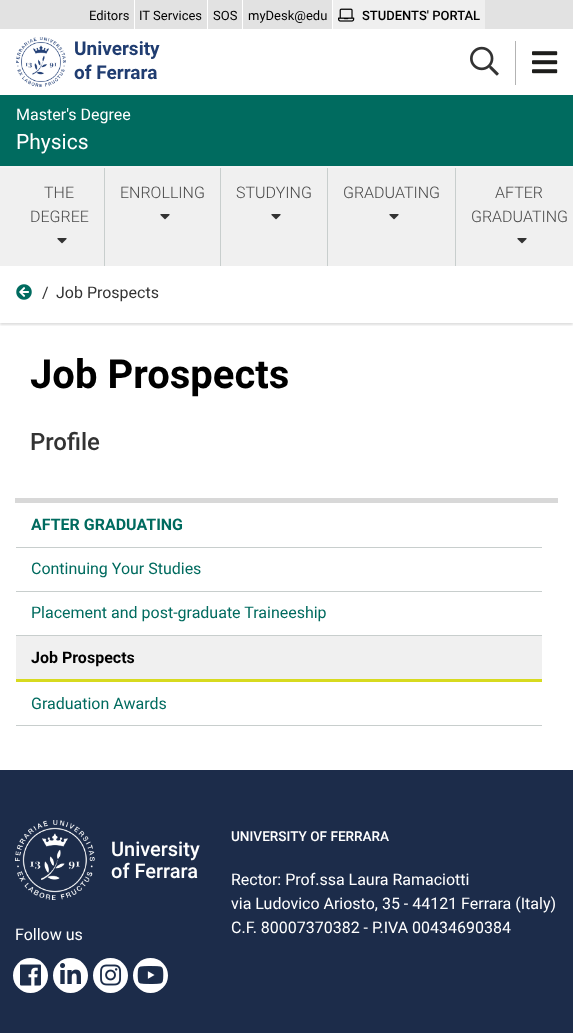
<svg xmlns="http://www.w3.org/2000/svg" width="573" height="1033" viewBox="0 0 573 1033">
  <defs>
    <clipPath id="clip1"><rect x="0" y="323" width="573" height="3"/></clipPath>
  </defs>
  <rect width="100%" height="100%" fill="rgb(255,255,255)"/>
  <rect x="0" y="0" width="573" height="29" fill="rgb(226,226,226)"/>
  <rect x="134" y="0" width="1" height="29" fill="rgb(255,255,255)"/>
  <text x="89" y="20" font-family="Roboto" font-size="13" fill="rgb(0,0,0)">Editors</text>
  <rect x="207" y="0" width="1" height="29" fill="rgb(255,255,255)"/>
  <text x="139" y="20" font-family="Roboto" font-size="13" fill="rgb(0,0,0)">IT Services</text>
  <rect x="242" y="0" width="1" height="29" fill="rgb(255,255,255)"/>
  <text x="213" y="20" font-family="Roboto" font-size="13" fill="rgb(0,0,0)">SOS</text>
  <rect x="332" y="0" width="1" height="29" fill="rgb(255,255,255)"/>
  <text x="248" y="20" font-family="Roboto" font-size="13" fill="rgb(0,0,0)">myDesk@edu</text>
  <rect x="333" y="0" width="152" height="29" fill="rgb(239,239,239)"/>
  <image x="338" y="8" width="17" height="14" href="pic1.png"/>
  <text x="362" y="20" font-family="Roboto" font-size="13" font-weight="500" fill="rgb(0,0,0)">STUDENTS' PORTAL</text>
  <rect x="0" y="166" width="573" height="2" fill="rgb(244,244,244)"/>
  <image x="16" y="37" width="50" height="50" href="pic2.png"/>
  <g font-family="Roboto" font-size="19" font-weight="bold" fill="rgb(32,61,113)">
    <text>
      <tspan x="74" y="55">University</tspan>
      <tspan x="74" y="79">of Ferrara</tspan>
    </text>
  </g>
  <image x="470" y="46" width="29" height="30" href="pic3.png"/>
  <rect x="515" y="41" width="1" height="44" fill="rgb(179,179,179)"/>
  <image x="532" y="51" width="26" height="23" href="pic4.png"/>
  <rect x="0" y="95" width="573" height="71" fill="rgb(0,107,95)"/>
  <text x="16" y="120" font-family="Roboto" font-size="16" fill="rgb(255,255,255)">Master's Degree</text>
  <text x="16" y="149" font-family="Roboto" font-size="21" fill="rgb(255,255,255)">Physics</text>
  <g clip-path="url(#clip1)">
    <rect x="0" y="268" width="573" height="57" fill="rgba(0,0,0,0.13)" filter="blur(1px)"/>
  </g>
  <rect x="0" y="168" width="573" height="98" fill="rgb(240,240,240)"/>
  <rect x="104" y="168" width="1" height="98" fill="rgb(200,206,205)"/>
  <g font-family="Roboto" font-size="16" font-weight="300" fill="rgb(74,74,74)">
    <text x="44" y="198">THE</text>
    <text x="30" y="222">DEGREE</text>
  </g>
  <image x="57" y="238" width="10" height="6" href="pic5.png"/>
  <rect x="220" y="168" width="1" height="98" fill="rgb(200,206,205)"/>
  <text x="120" y="198" font-family="Roboto" font-size="16" font-weight="300" fill="rgb(74,74,74)">ENROLLING</text>
  <image x="160" y="214" width="10" height="6" href="pic5.png"/>
  <rect x="327" y="168" width="1" height="98" fill="rgb(200,206,205)"/>
  <text x="236" y="198" font-family="Roboto" font-size="16" font-weight="300" fill="rgb(74,74,74)">STUDYING</text>
  <image x="271" y="214" width="10" height="6" href="pic5.png"/>
  <rect x="455" y="168" width="1" height="98" fill="rgb(200,206,205)"/>
  <text x="343" y="198" font-family="Roboto" font-size="16" font-weight="300" fill="rgb(74,74,74)">GRADUATING</text>
  <image x="389" y="214" width="10" height="6" href="pic5.png"/>
  <g font-family="Roboto" font-size="16" font-weight="300" fill="rgb(74,74,74)">
    <text x="495" y="198">AFTER</text>
    <text x="471" y="222">GRADUATING</text>
  </g>
  <image x="517" y="238" width="10" height="6" href="pic5.png"/>
  <image x="16" y="284" width="16" height="16" href="pic6.png"/>
  <g font-family="Roboto" font-size="16" fill="rgb(51,51,51)">
    <text x="42" y="298">/</text>
    <text x="56" y="298">Job Prospects</text>
  </g>
  <text x="30" y="388" font-family="Roboto" font-size="40" font-weight="bold" fill="rgb(0,0,0)">Job Prospects</text>
  <text x="30" y="450" font-family="Roboto" font-size="24" font-weight="500" fill="rgb(51,51,51)">Profile</text>
  <rect x="15" y="498" width="543" height="5" fill="rgb(216,216,216)"/>
  <rect x="16" y="547" width="526" height="1" fill="rgb(200,206,205)"/>
  <text x="31" y="530" font-family="Roboto" font-size="16" font-weight="bold" fill="rgb(0,107,95)">AFTER GRADUATING</text>
  <rect x="16" y="591" width="526" height="1" fill="rgb(200,206,205)"/>
  <text x="31" y="574" font-family="Roboto" font-size="16" fill="rgb(0,107,95)">Continuing Your Studies</text>
  <rect x="16" y="635" width="526" height="1" fill="rgb(200,206,205)"/>
  <text x="31" y="618" font-family="Roboto" font-size="16" fill="rgb(0,107,95)">Placement and post-graduate Traineeship</text>
  <rect x="16" y="636" width="526" height="43" fill="rgb(240,240,240)"/>
  <rect x="16" y="679" width="526" height="3" fill="rgb(215,218,31)"/>
  <text x="31" y="663" font-family="Roboto" font-size="16" font-weight="bold" fill="rgb(0,0,0)">Job Prospects</text>
  <rect x="16" y="725" width="526" height="1" fill="rgb(200,206,205)"/>
  <text x="31" y="709" font-family="Roboto" font-size="16" fill="rgb(0,107,95)">Graduation Awards</text>
  <rect x="0" y="770" width="573" height="263" fill="rgb(28,44,74)"/>
  <image x="15" y="820" width="80" height="80" href="pic7.png"/>
  <g font-family="Roboto" font-size="20" font-weight="500" fill="rgb(255,255,255)">
    <text>
      <tspan x="111" y="856">University</tspan>
      <tspan x="111" y="878">of Ferrara</tspan>
    </text>
  </g>
  <text x="15" y="940" font-family="Roboto" font-size="16" fill="rgb(255,255,255)">Follow us</text>
  <circle cx="30.5" cy="975.5" r="17.5" fill="rgb(255,255,255)"/>
  <image x="20" y="964" width="21" height="22" href="pic8.png"/>
  <circle cx="70.5" cy="975.5" r="17.5" fill="rgb(255,255,255)"/>
  <image x="60" y="963" width="21" height="21" href="pic9.png"/>
  <circle cx="110.5" cy="975.5" r="17.5" fill="rgb(255,255,255)"/>
  <image x="100" y="964" width="22" height="22" href="pic10.png"/>
  <circle cx="150.5" cy="975.5" r="17.5" fill="rgb(255,255,255)"/>
  <image x="137" y="966" width="27" height="18" href="pic11.png"/>
  <text x="231" y="841" font-family="Roboto" font-size="13.6" font-weight="500" fill="rgb(255,255,255)">UNIVERSITY OF FERRARA</text>
  <g font-family="Roboto" font-size="16" fill="rgb(255,255,255)">
    <text>
      <tspan x="231" y="885">Rector: Prof.ssa Laura Ramaciotti</tspan>
      <tspan x="231" y="909">via Ludovico Ariosto, 35 - 44121 Ferrara (Italy)</tspan>
      <tspan x="231" y="933">C.F. 80007370382 - P.IVA 00434690384</tspan>
    </text>
  </g>
</svg>
